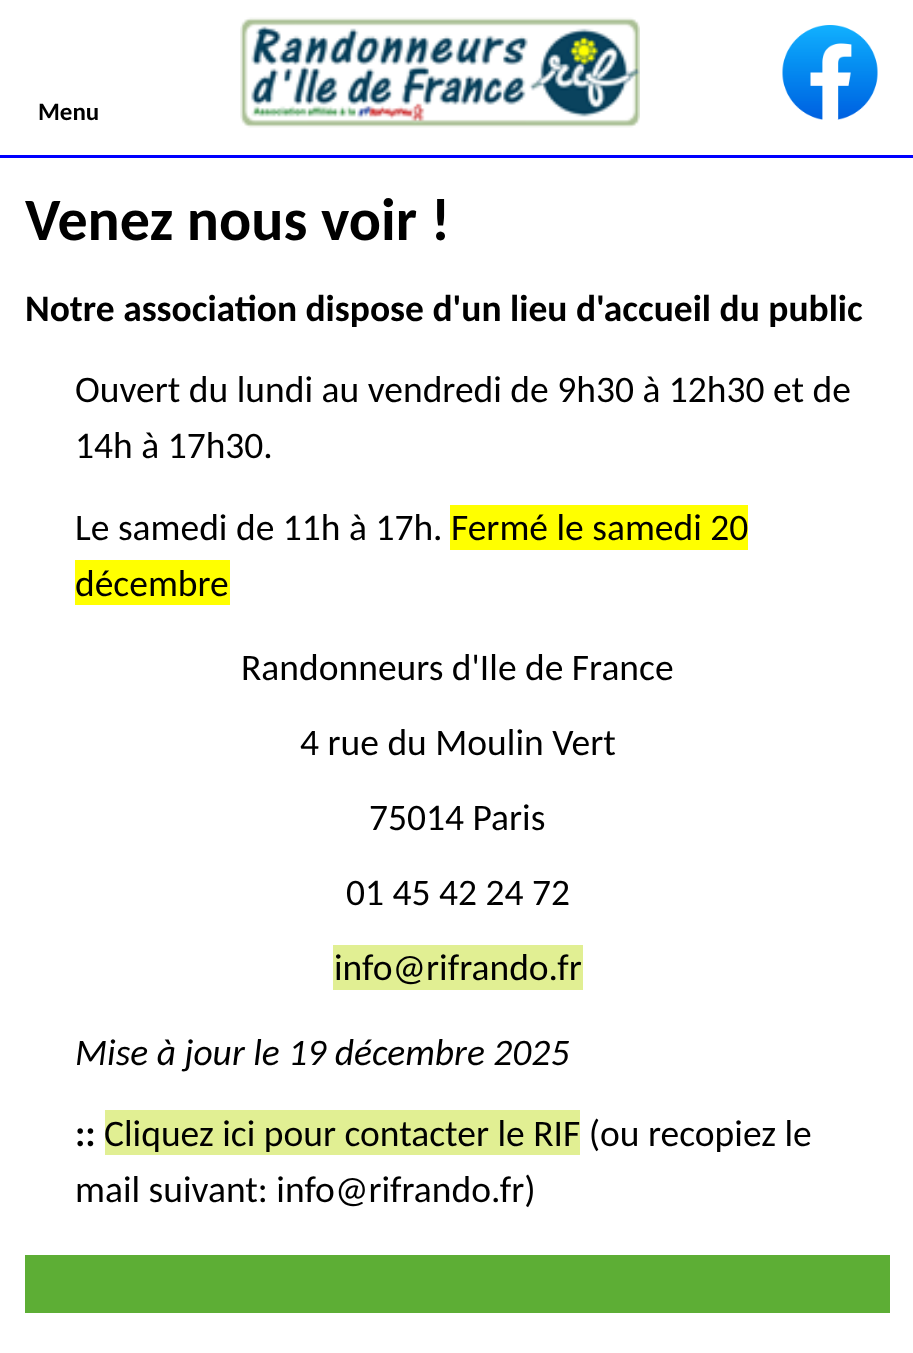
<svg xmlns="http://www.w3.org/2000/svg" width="913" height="1353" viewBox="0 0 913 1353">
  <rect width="100%" height="100%" fill="rgb(255,255,255)"/>
  <rect x="0" y="155" width="913" height="3" fill="rgb(0,0,255)"/>
  <text x="38" y="120" font-family="Carlito" font-size="25" font-weight="bold" fill="rgb(0,0,0)">Menu</text>
  <image x="240" y="17" width="400" height="111" href="pic1.png"/>
  <image x="782" y="25" width="96" height="95" href="pic2.png"/>
  <text x="25" y="240" font-family="Carlito" font-size="60" font-weight="bold" fill="rgb(0,0,0)">Venez nous voir !</text>
  <text x="25" y="321" font-family="Carlito" font-size="37.5" font-weight="bold" fill="rgb(0,0,0)">Notre association dispose d'un lieu d'accueil du public</text>
  <g font-family="Carlito" font-size="37.5" fill="rgb(0,0,0)">
    <text>
      <tspan x="75" y="402">Ouvert du lundi au vendredi de 9h30 à 12h30 et de</tspan>
      <tspan x="75" y="458">14h à 17h30.</tspan>
    </text>
    <text x="75" y="540">Le samedi de 11h à 17h.</text>
  </g>
  <rect x="450" y="505" width="298" height="45" fill="rgb(255,255,0)"/>
  <text x="451" y="540" font-family="Carlito" font-size="37.5" fill="rgb(0,0,0)">Fermé le samedi 20</text>
  <rect x="75" y="560" width="155" height="45" fill="rgb(255,255,0)"/>
  <g font-family="Carlito" font-size="37.5" fill="rgb(0,0,0)">
    <text x="75" y="596">décembre</text>
    <text x="241" y="680">Randonneurs d'Ile de France</text>
    <text x="300" y="755">4 rue du Moulin Vert</text>
    <text x="369" y="830">75014 Paris</text>
    <text x="346" y="905">01 45 42 24 72</text>
  </g>
  <rect x="333" y="945" width="250" height="45" fill="rgb(225,239,147)"/>
  <text x="334" y="980" font-family="Carlito" font-size="37.5" fill="rgb(0,0,0)">info@rifrando.fr</text>
  <text x="75" y="1065" font-family="Carlito" font-size="37.5" font-style="italic" fill="rgb(0,0,0)">Mise à jour le 19 décembre 2025</text>
  <text x="75" y="1146" font-family="Carlito" font-size="37.5" font-weight="bold" fill="rgb(0,0,0)">::</text>
  <rect x="105" y="1110" width="475" height="45" fill="rgb(225,239,147)"/>
  <g font-family="Carlito" font-size="37.5" fill="rgb(0,0,0)">
    <text x="104" y="1146">Cliquez ici pour contacter le RIF (ou recopiez le</text>
    <text x="75" y="1202">mail suivant: info@rifrando.fr)</text>
  </g>
  <rect x="25" y="1255" width="865" height="58" fill="rgb(93,174,53)"/>
</svg>
